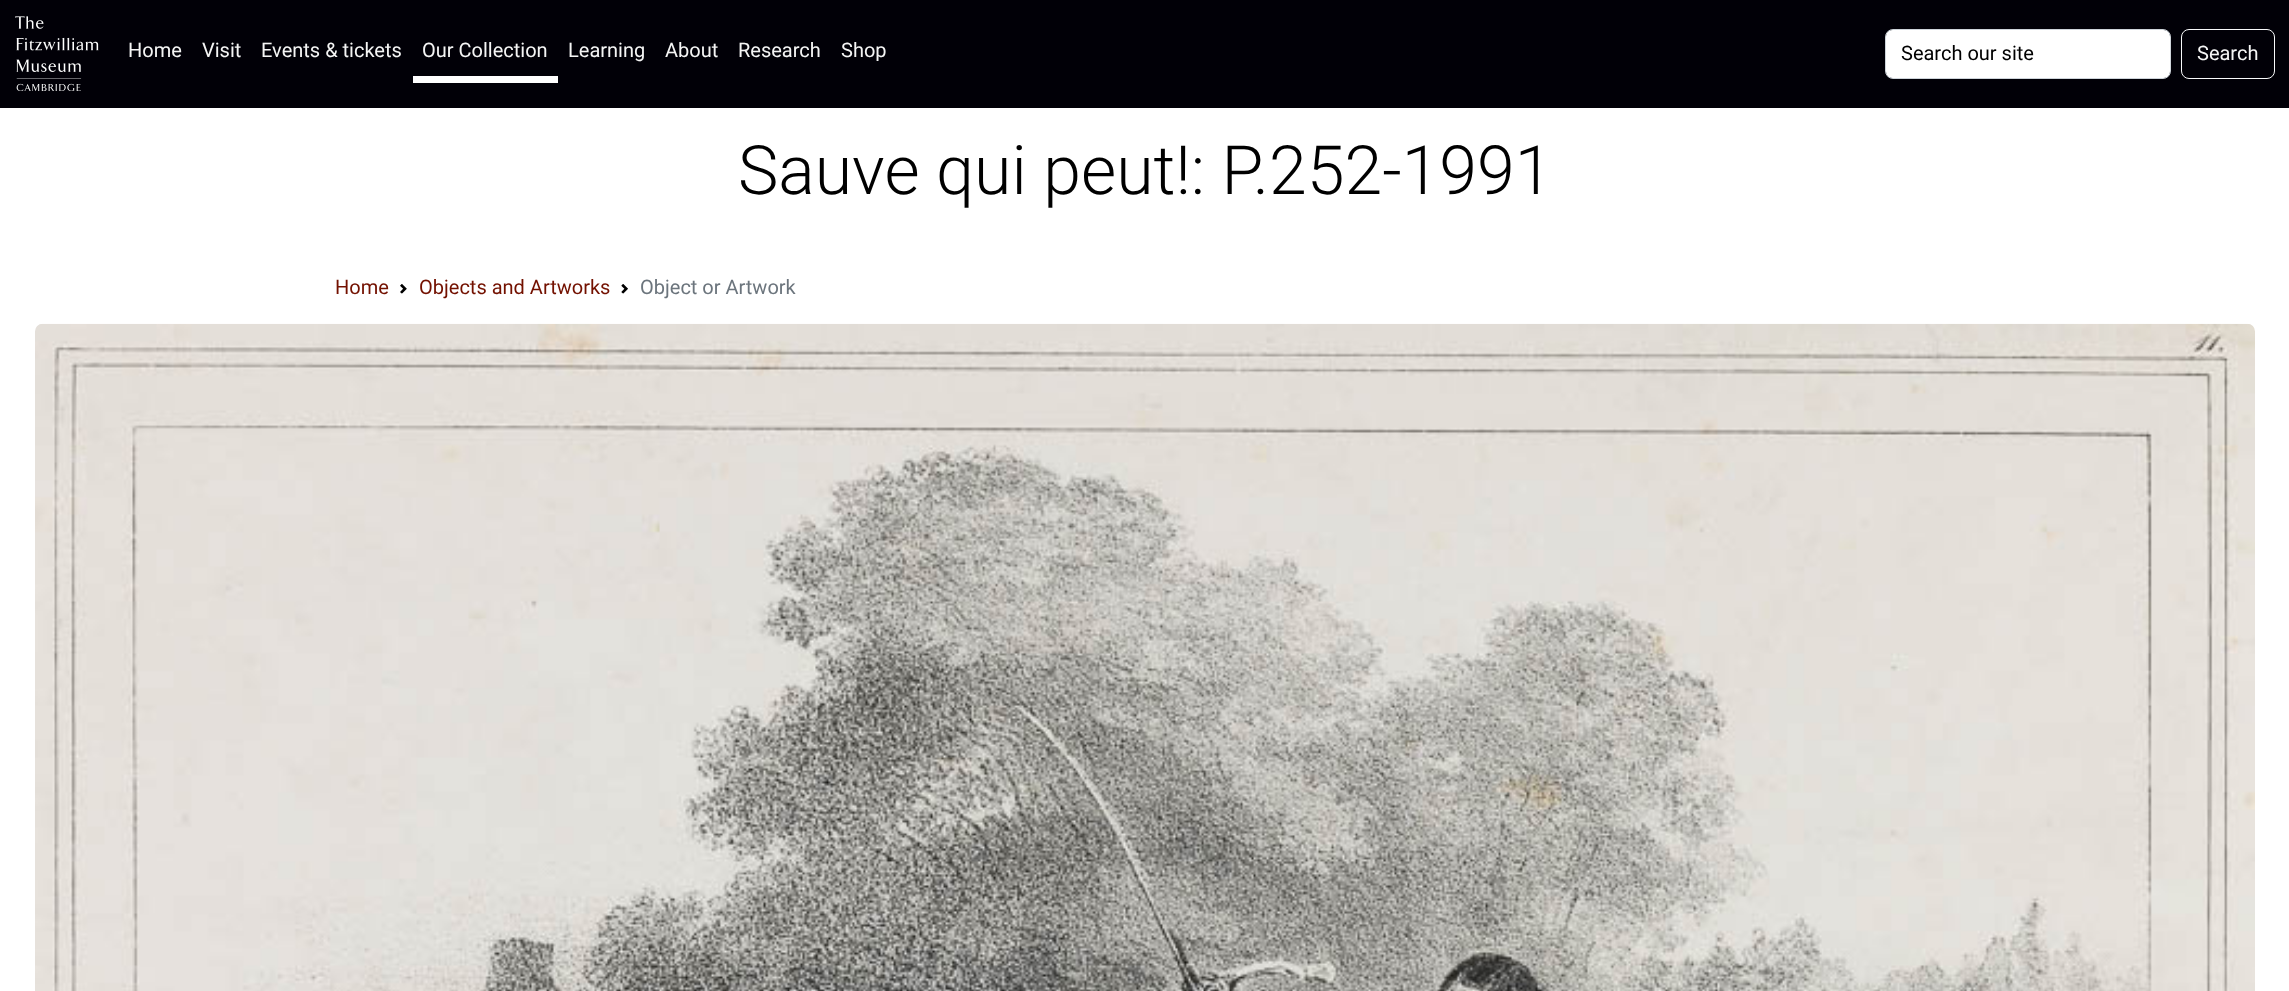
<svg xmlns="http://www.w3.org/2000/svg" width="2289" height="991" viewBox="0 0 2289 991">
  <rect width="100%" height="100%" fill="rgb(255,255,255)"/>
  <rect x="0" y="0" width="2289" height="108" fill="rgb(1,0,7)"/>
  <image x="15" y="16" width="84" height="75" href="pic1.png"/>
  <g font-family="Roboto" font-size="20" fill="rgb(245,245,245)">
    <text x="128" y="57">Home</text>
    <text x="202" y="57">Visit</text>
    <text x="261" y="57">Events &amp; tickets</text>
  </g>
  <rect x="413" y="76" width="145" height="7" fill="rgb(255,255,255)"/>
  <g font-family="Roboto" font-size="20" fill="rgb(245,245,245)">
    <text x="422" y="57">Our Collection</text>
    <text x="568" y="57">Learning</text>
    <text x="665" y="57">About</text>
    <text x="738" y="57">Research</text>
    <text x="841" y="57">Shop</text>
  </g>
  <rect x="1886" y="30" width="284" height="48" rx="6" fill="rgb(255,255,255)"/>
  <rect x="1885.5" y="29.5" width="285" height="49" rx="7.5" fill="none" stroke="rgb(206,212,218)"/>
  <text x="1901" y="60" font-family="Roboto" font-size="20" fill="rgb(0,0,0)">Search our site</text>
  <rect x="2181.5" y="29.5" width="93" height="49" rx="7.5" fill="none" stroke="rgb(248,249,250)"/>
  <text x="2197" y="60" font-family="Roboto" font-size="20" fill="rgb(245,245,245)">Search</text>
  <text x="738" y="194" font-family="Roboto" font-size="68" font-weight="300" fill="rgb(0,0,0)">Sauve qui peut!: P.252-1991</text>
  <text x="335" y="294" font-family="Roboto" font-size="20" fill="rgb(115,17,0)">Home</text>
  <image x="400" y="284" width="7" height="10" href="pic2.png"/>
  <text x="419" y="294" font-family="Roboto" font-size="20" fill="rgb(115,17,0)">Objects and Artworks</text>
  <image x="621" y="284" width="7" height="10" href="pic3.png"/>
  <text x="640" y="294" font-family="Roboto" font-size="20" fill="rgb(108,117,125)">Object or Artwork</text>
  <image x="35" y="323" width="2220" height="668" href="pic4.png"/>
</svg>
